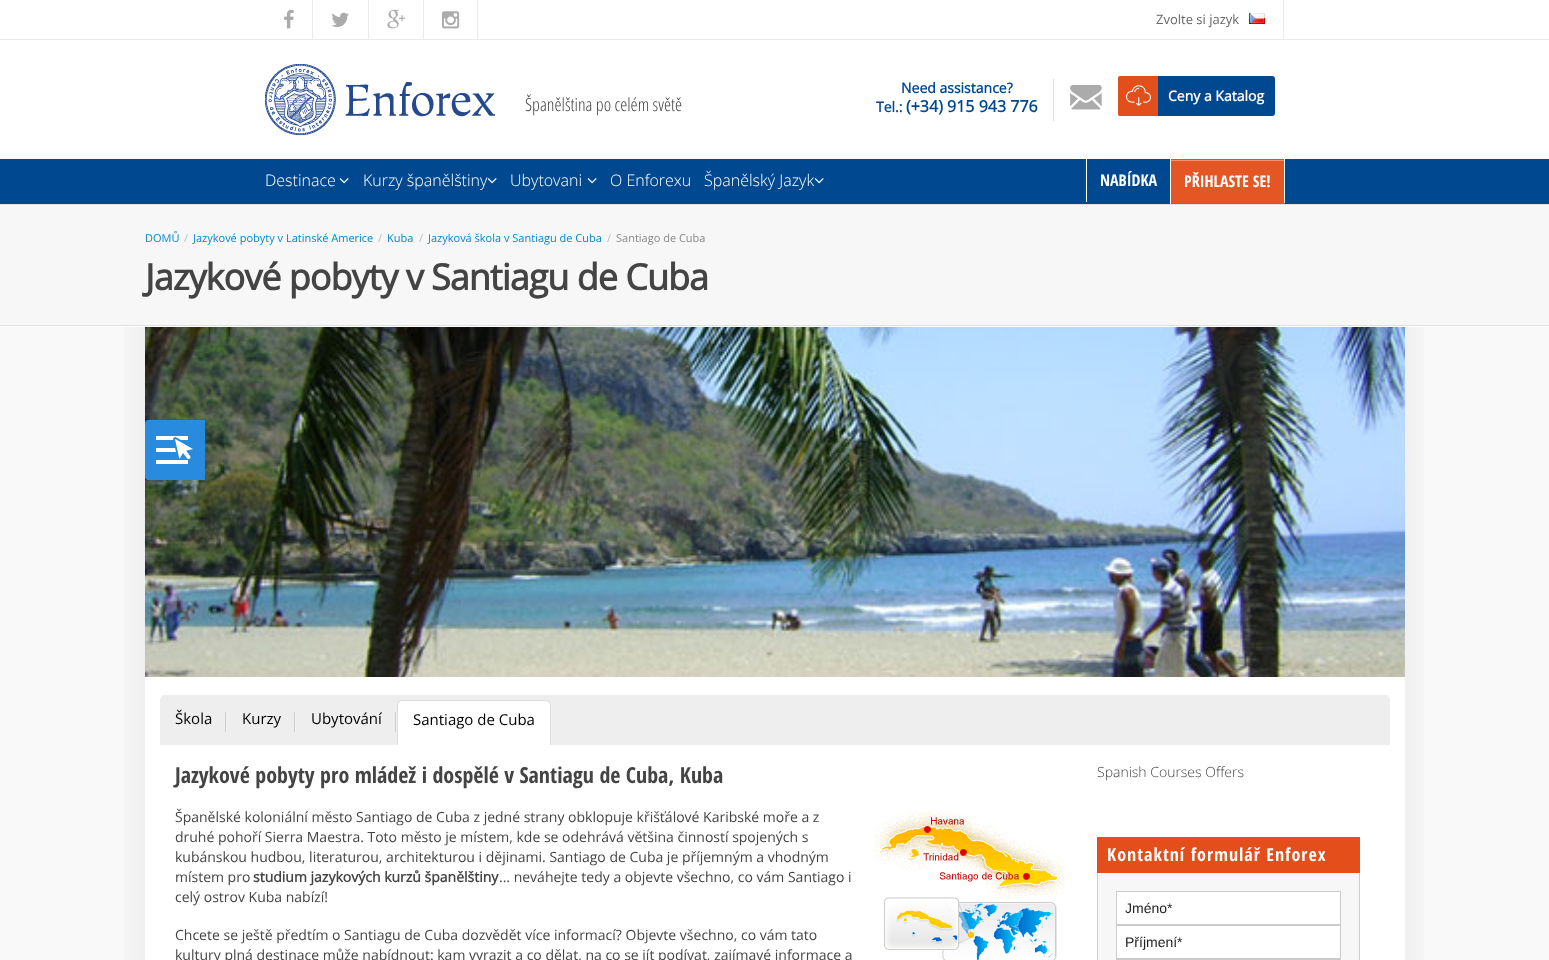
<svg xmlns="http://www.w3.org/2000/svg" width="1549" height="960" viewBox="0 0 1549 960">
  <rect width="100%" height="100%" fill="rgb(255,255,255)"/>
  <rect x="0" y="204" width="1549" height="1" fill="rgb(225,225,225)"/>
  <rect x="0" y="39" width="1549" height="1" fill="rgb(234,234,234)"/>
  <rect x="312" y="0" width="1" height="39" fill="rgb(234,234,234)"/>
  <image x="284" y="9" width="10" height="20" href="pic1.png"/>
  <rect x="368" y="0" width="1" height="39" fill="rgb(234,234,234)"/>
  <image x="331" y="12" width="18" height="15" href="pic2.png"/>
  <rect x="423" y="0" width="1" height="39" fill="rgb(234,234,234)"/>
  <image x="387" y="9" width="18" height="20" href="pic3.png"/>
  <rect x="477" y="0" width="1" height="39" fill="rgb(234,234,234)"/>
  <image x="442" y="11" width="18" height="18" href="pic4.png"/>
  <rect x="1283" y="0" width="1" height="39" fill="rgb(234,234,234)"/>
  <text x="1156" y="24" font-family="Open Sans" font-size="13" fill="rgb(102,102,102)">Zvolte si jazyk</text>
  <image x="1249" y="13" width="16" height="11" href="pic5.png"/>
  <image x="265" y="64" width="230" height="71" href="pic6.png"/>
  <text x="525" y="111" font-family="Open Sans Condensed" font-size="18" font-weight="300" fill="rgb(68,68,68)">Španělština po celém světě</text>
  <rect x="1053" y="79" width="1" height="42" fill="rgb(223,223,223)"/>
  <g font-family="Open Sans" font-size="14" font-weight="bold" fill="rgb(0,73,144)">
    <text x="901" y="93">Need assistance?</text>
    <text x="876" y="112">Tel.:</text>
  </g>
  <text x="906" y="112" font-family="Open Sans" font-size="16" font-weight="bold" fill="rgb(0,73,144)">(+34) 915 943 776</text>
  <image x="1070" y="85" width="32" height="25" href="pic7.png"/>
  <rect x="1118" y="76" width="157" height="40" rx="3" fill="rgb(0,73,144)"/>
  <path d="M1120 76H1158V116H1120C1119 116 1118 115 1118 114V78C1118 77 1119 76 1120 76Z" fill="rgb(227,79,27)"/>
  <image x="1126" y="85" width="25" height="21" href="pic8.png"/>
  <text x="1168" y="101" font-family="Open Sans" font-size="14" font-weight="bold" fill="rgb(255,255,255)">Ceny a Katalog</text>
  <rect x="0" y="159" width="1549" height="45" fill="rgb(0,73,144)"/>
  <text x="265" y="186" font-family="Open Sans" font-size="16" font-weight="300" fill="rgb(255,255,255)">Destinace</text>
  <image x="339" y="178" width="10" height="6" href="pic9.png"/>
  <text x="363" y="186" font-family="Open Sans" font-size="16" font-weight="300" fill="rgb(255,255,255)">Kurzy španělštiny</text>
  <image x="487" y="178" width="10" height="6" href="pic9.png"/>
  <text x="510" y="186" font-family="Open Sans" font-size="16" font-weight="300" fill="rgb(255,255,255)">Ubytovani</text>
  <image x="587" y="178" width="10" height="6" href="pic9.png"/>
  <g font-family="Open Sans" font-size="16" font-weight="300" fill="rgb(255,255,255)">
    <text x="610" y="186">O Enforexu</text>
    <text x="704" y="186">Španělský Jazyk</text>
  </g>
  <image x="814" y="178" width="10" height="6" href="pic9.png"/>
  <rect x="1086" y="159" width="1" height="43" fill="rgb(255,255,255)"/>
  <text x="1100" y="186" font-family="Open Sans Condensed" font-size="16" font-weight="bold" fill="rgb(255,255,255)">NABÍDKA</text>
  <rect x="1171" y="161" width="113" height="42" fill="rgb(228,86,36)"/>
  <rect x="1171" y="160" width="113" height="1" fill="rgb(250,145,108)"/>
  <rect x="1170" y="159" width="115" height="1" fill="rgb(227,78,26)"/>
  <rect x="1284" y="159" width="1" height="45" fill="rgb(255,255,255)"/>
  <rect x="1170" y="203" width="115" height="1" fill="rgb(227,78,26)"/>
  <rect x="1170" y="159" width="1" height="45" fill="rgb(255,255,255)"/>
  <text x="1184" y="187" font-family="Open Sans Condensed" font-size="16" font-weight="bold" fill="rgb(255,255,255)">PŘIHLASTE SE!</text>
  <rect x="0" y="327" width="1549" height="633" fill="rgb(249,249,249)"/>
  <image x="124" y="327" width="1300" height="633" href="pic10.png"/>
  <rect x="0" y="205" width="1549" height="120" fill="rgb(247,247,247)"/>
  <image x="0" y="325" width="1549" height="2" href="pic11.png"/>
  <text x="145" y="242" font-family="Open Sans" font-size="11" fill="rgb(0,136,204)">DOMŮ</text>
  <text x="184" y="242" font-family="Open Sans" font-size="11" fill="rgb(189,189,189)">/</text>
  <text x="193" y="242" font-family="Open Sans" font-size="11" fill="rgb(0,136,204)">Jazykové pobyty v Latinské Americe</text>
  <text x="378" y="242" font-family="Open Sans" font-size="11" fill="rgb(189,189,189)">/</text>
  <text x="387" y="242" font-family="Open Sans" font-size="11" fill="rgb(0,136,204)">Kuba</text>
  <text x="419" y="242" font-family="Open Sans" font-size="11" fill="rgb(189,189,189)">/</text>
  <text x="428" y="242" font-family="Open Sans" font-size="11" fill="rgb(0,136,204)">Jazyková škola v Santiagu de Cuba</text>
  <text x="607" y="242" font-family="Open Sans" font-size="11" fill="rgb(189,189,189)">/</text>
  <text x="616" y="242" font-family="Open Sans" font-size="11" fill="rgb(136,136,136)">Santiago de Cuba</text>
  <text x="145" y="290" font-family="Open Sans" font-size="36" font-weight="bold" letter-spacing="-1" fill="rgb(68,68,68)">Jazykové pobyty v Santiagu de Cuba</text>
  <image x="145" y="327" width="1260" height="350" href="pic12.png"/>
  <rect x="145" y="677" width="1260" height="283" fill="rgb(255,255,255)"/>
  <path d="M148 420H205V480H148C146.5 480 145 478.5 145 477V423C145 421.5 146.5 420 148 420Z" fill="rgb(40,139,222)"/>
  <image x="156" y="436" width="37" height="28" href="pic13.png"/>
  <path d="M165 695H1385C1388 695 1390 697 1390 700V745H160V700C160 697 162 695 165 695Z" fill="rgb(238,238,238)"/>
  <image x="225" y="712" width="2" height="20" href="pic14.png"/>
  <text x="175" y="724" font-family="Open Sans" font-size="15" fill="rgb(0,0,0)">Škola</text>
  <image x="294" y="712" width="2" height="20" href="pic14.png"/>
  <text x="242" y="724" font-family="Open Sans" font-size="15" fill="rgb(0,0,0)">Kurzy</text>
  <image x="395" y="712" width="2" height="20" href="pic14.png"/>
  <text x="311" y="724" font-family="Open Sans" font-size="15" fill="rgb(0,0,0)">Ubytování</text>
  <path d="M402 700H546C549 700 551 702 551 705V745H397V705C397 702 399 700 402 700Z" fill="rgb(255,255,255)"/>
  <path d="M402 700H546C549 700 551 702 551 705V745H397V705C397 702 399 700 402 700ZM402 701H546C548 701 550 703 550 705V745H398V705C398 703 400 701 402 701Z" fill="rgb(221,221,221)" fill-rule="evenodd"/>
  <text x="413" y="725" font-family="Open Sans" font-size="15" fill="rgb(0,0,0)">Santiago de Cuba</text>
  <text x="175" y="783" font-family="Open Sans Condensed" font-size="22" font-weight="bold" fill="rgb(68,68,68)">Jazykové pobyty pro mládež i dospělé v Santiagu de Cuba, Kuba</text>
  <g font-family="Open Sans" font-size="14" fill="rgb(68,68,68)">
    <text>
      <tspan x="175" y="822">Španělské koloniální město Santiago de Cuba z jedné strany obklopuje křišťálové Karibské moře a z</tspan>
      <tspan x="175" y="842">druhé pohoří Sierra Maestra. Toto město je místem, kde se odehrává většina činností spojených s</tspan>
      <tspan x="175" y="862">kubánskou hudbou, literaturou, architekturou i dějinami. Santiago de Cuba je příjemným a vhodným</tspan>
      <tspan x="175" y="882">místem pro</tspan>
    </text>
  </g>
  <text x="253" y="882" font-family="Open Sans" font-size="14" font-weight="bold" fill="rgb(68,68,68)">studium jazykových kurzů španělštiny</text>
  <g font-family="Open Sans" font-size="14" fill="rgb(68,68,68)">
    <text x="499" y="882">... neváhejte tedy a objevte všechno, co vám Santiago i</text>
    <text x="175" y="902">celý ostrov Kuba nabízí!</text>
  </g>
  <image x="874" y="810" width="191" height="150" href="pic15.png"/>
  <g font-family="Open Sans" font-size="14" fill="rgb(68,68,68)">
    <text>
      <tspan x="175" y="940">Chcete se ještě předtím o Santiagu de Cuba dozvědět více informací? Objevte všechno, co vám tato</tspan>
      <tspan x="175" y="960">kultury plná destinace může nabídnout: kam vyrazit a co dělat, na co se jít podívat, zajímavé informace a</tspan>
    </text>
  </g>
  <text x="1097" y="777" font-family="Open Sans" font-size="14" font-weight="300" fill="rgb(68,68,68)">Spanish Courses Offers</text>
  <rect x="1098" y="873" width="261" height="87" fill="rgb(247,247,247)"/>
  <rect x="1097" y="837" width="263" height="36" fill="rgb(227,78,26)"/>
  <text x="1107" y="861" font-family="Open Sans Condensed" font-size="18" font-weight="bold" letter-spacing="1" fill="rgb(255,255,255)">Kontaktní formulář Enforex</text>
  <rect x="1359" y="873" width="1" height="87" fill="rgb(204,204,204)"/>
  <rect x="1097" y="873" width="1" height="87" fill="rgb(204,204,204)"/>
  <rect x="1116.5" y="891.5" width="224" height="33" fill="rgb(255,255,255)" stroke="rgb(204,204,204)"/>
  <text x="1125" y="913" font-family="Liberation Sans" font-size="14" fill="rgb(34,34,34)">Jméno*</text>
  <rect x="1116.5" y="925.5" width="224" height="33" fill="rgb(255,255,255)" stroke="rgb(204,204,204)"/>
  <text x="1125" y="947" font-family="Liberation Sans" font-size="14" fill="rgb(34,34,34)">Příjmení*</text>
  <rect x="1116.5" y="959.5" width="224" height="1" fill="none" stroke="rgb(204,204,204)"/>
</svg>
